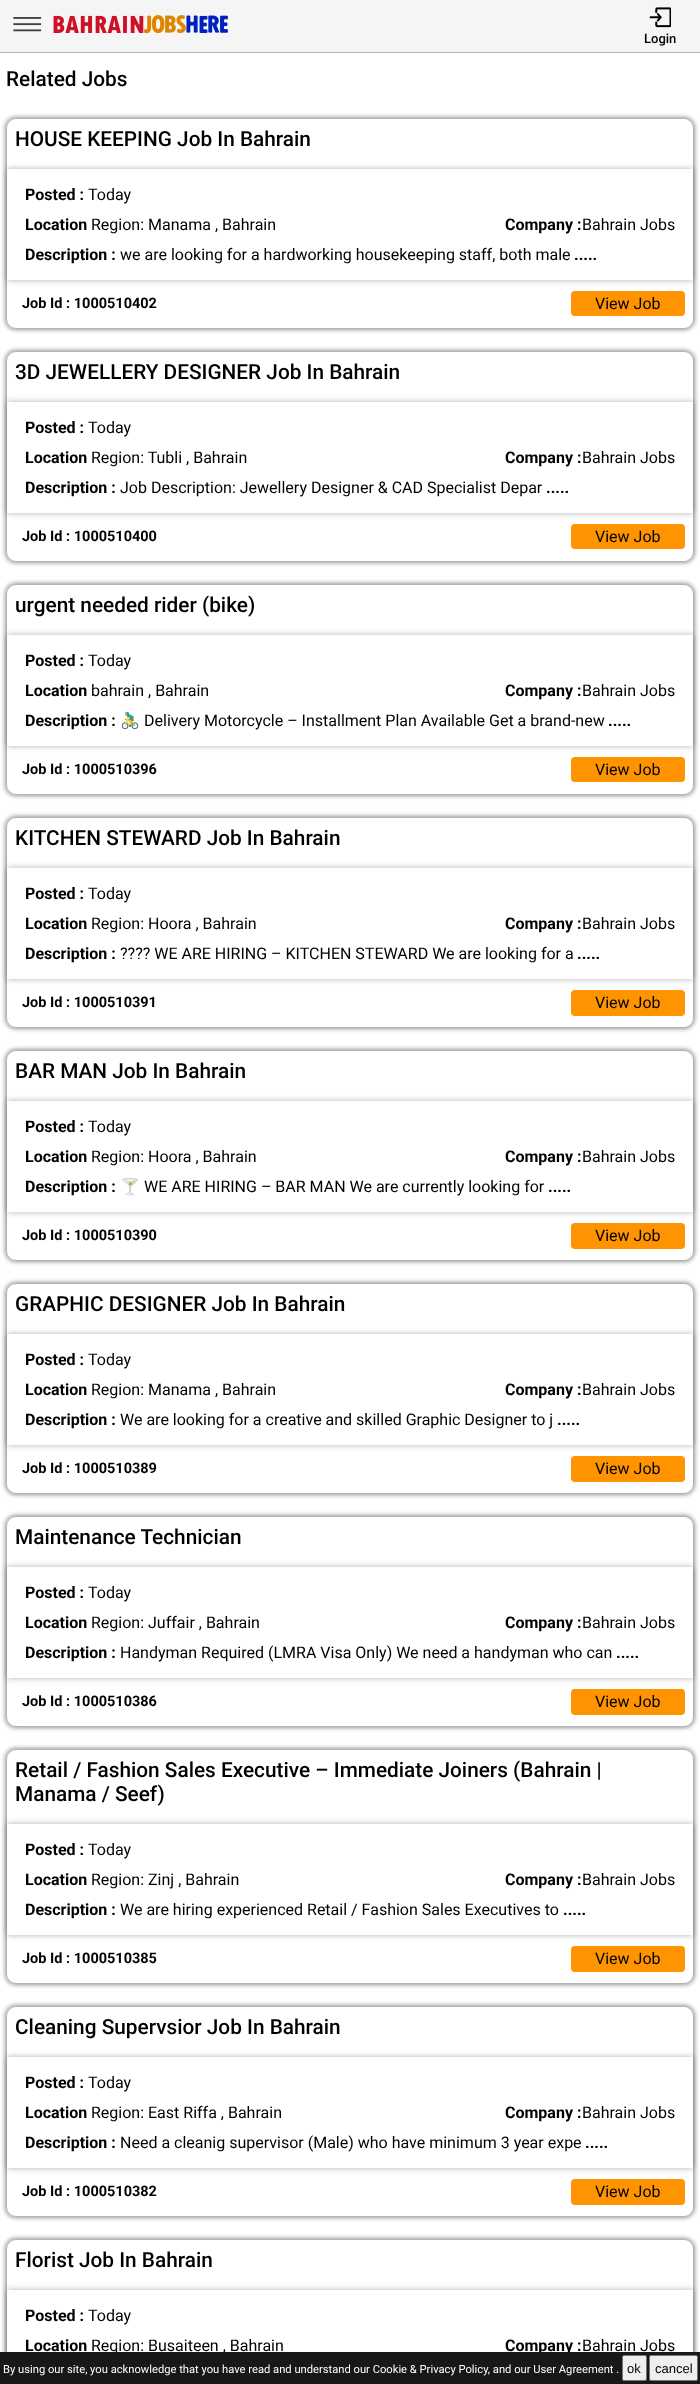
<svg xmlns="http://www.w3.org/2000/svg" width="700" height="2384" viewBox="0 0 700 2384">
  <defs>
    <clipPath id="clip1"><path d="M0 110H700V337H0ZM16 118H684C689.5 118 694 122.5 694 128V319C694 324.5 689.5 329 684 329H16C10.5 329 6 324.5 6 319V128C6 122.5 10.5 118 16 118Z" clip-rule="evenodd"/></clipPath>
    <clipPath id="clip2"><path d="M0 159H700V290H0ZM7 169H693V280H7Z" clip-rule="evenodd"/></clipPath>
    <clipPath id="clip3"><path d="M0 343H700V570H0ZM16 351H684C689.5 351 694 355.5 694 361V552C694 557.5 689.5 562 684 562H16C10.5 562 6 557.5 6 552V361C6 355.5 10.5 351 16 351Z" clip-rule="evenodd"/></clipPath>
    <clipPath id="clip4"><path d="M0 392H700V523H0ZM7 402H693V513H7Z" clip-rule="evenodd"/></clipPath>
    <clipPath id="clip5"><path d="M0 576H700V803H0ZM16 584H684C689.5 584 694 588.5 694 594V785C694 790.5 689.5 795 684 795H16C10.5 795 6 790.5 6 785V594C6 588.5 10.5 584 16 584Z" clip-rule="evenodd"/></clipPath>
    <clipPath id="clip6"><path d="M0 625H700V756H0ZM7 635H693V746H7Z" clip-rule="evenodd"/></clipPath>
    <clipPath id="clip7"><path d="M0 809H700V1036H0ZM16 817H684C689.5 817 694 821.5 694 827V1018C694 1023.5 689.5 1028 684 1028H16C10.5 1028 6 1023.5 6 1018V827C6 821.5 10.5 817 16 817Z" clip-rule="evenodd"/></clipPath>
    <clipPath id="clip8"><path d="M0 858H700V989H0ZM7 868H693V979H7Z" clip-rule="evenodd"/></clipPath>
    <clipPath id="clip9"><path d="M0 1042H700V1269H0ZM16 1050H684C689.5 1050 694 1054.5 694 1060V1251C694 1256.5 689.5 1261 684 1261H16C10.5 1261 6 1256.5 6 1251V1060C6 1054.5 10.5 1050 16 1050Z" clip-rule="evenodd"/></clipPath>
    <clipPath id="clip10"><path d="M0 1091H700V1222H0ZM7 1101H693V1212H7Z" clip-rule="evenodd"/></clipPath>
    <clipPath id="clip11"><path d="M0 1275H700V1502H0ZM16 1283H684C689.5 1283 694 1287.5 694 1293V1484C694 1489.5 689.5 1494 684 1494H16C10.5 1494 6 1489.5 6 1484V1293C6 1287.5 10.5 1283 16 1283Z" clip-rule="evenodd"/></clipPath>
    <clipPath id="clip12"><path d="M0 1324H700V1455H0ZM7 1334H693V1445H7Z" clip-rule="evenodd"/></clipPath>
    <clipPath id="clip13"><path d="M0 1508H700V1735H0ZM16 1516H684C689.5 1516 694 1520.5 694 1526V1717C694 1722.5 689.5 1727 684 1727H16C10.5 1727 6 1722.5 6 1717V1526C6 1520.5 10.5 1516 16 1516Z" clip-rule="evenodd"/></clipPath>
    <clipPath id="clip14"><path d="M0 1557H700V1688H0ZM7 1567H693V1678H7Z" clip-rule="evenodd"/></clipPath>
    <clipPath id="clip15"><path d="M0 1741H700V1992H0ZM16 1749H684C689.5 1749 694 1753.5 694 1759V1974C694 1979.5 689.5 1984 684 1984H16C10.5 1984 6 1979.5 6 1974V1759C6 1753.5 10.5 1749 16 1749Z" clip-rule="evenodd"/></clipPath>
    <clipPath id="clip16"><path d="M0 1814H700V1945H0ZM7 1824H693V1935H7Z" clip-rule="evenodd"/></clipPath>
    <clipPath id="clip17"><path d="M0 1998H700V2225H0ZM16 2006H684C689.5 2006 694 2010.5 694 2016V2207C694 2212.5 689.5 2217 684 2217H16C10.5 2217 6 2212.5 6 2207V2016C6 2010.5 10.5 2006 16 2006Z" clip-rule="evenodd"/></clipPath>
    <clipPath id="clip18"><path d="M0 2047H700V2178H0ZM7 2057H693V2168H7Z" clip-rule="evenodd"/></clipPath>
    <clipPath id="clip19"><path d="M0 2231H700V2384H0ZM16 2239H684C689.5 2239 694 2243.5 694 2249V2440C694 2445.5 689.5 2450 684 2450H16C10.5 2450 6 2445.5 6 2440V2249C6 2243.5 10.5 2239 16 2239Z" clip-rule="evenodd"/></clipPath>
    <clipPath id="clip20"><path d="M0 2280H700V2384H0ZM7 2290H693V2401H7Z" clip-rule="evenodd"/></clipPath>
  </defs>
  <rect width="100%" height="100%" fill="rgb(255,255,255)"/>
  <rect x="0" y="0" width="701" height="53" fill="rgba(0,0,0,0.3)" filter="blur(0.5px)"/>
  <rect x="0" y="0" width="700" height="52" fill="rgb(245,245,245)"/>
  <image x="13" y="17" width="29" height="15" href="pic1.png"/>
  <image x="53" y="15" width="175" height="19" href="pic2.png"/>
  <image x="649" y="7" width="22" height="21" href="pic3.png"/>
  <text x="644" y="43" font-family="Roboto" font-size="13" font-weight="500" fill="rgb(0,0,0)">Login</text>
  <text x="6" y="86" font-family="Roboto" font-size="20.8" font-weight="500" fill="rgb(0,0,0)">Related Jobs</text>
  <g clip-path="url(#clip1)">
    <rect x="5" y="117" width="690" height="213" rx="11" fill="rgba(0,0,0,0.4)" filter="blur(2px)"/>
  </g>
  <rect x="6.5" y="118.5" width="687" height="210" rx="9.5" fill="none" stroke="rgba(0,0,0,0.3)"/>
  <text x="15" y="146" font-family="Roboto" font-size="20.8" font-weight="500" fill="rgb(0,0,0)">HOUSE KEEPING Job In Bahrain</text>
  <g clip-path="url(#clip2)">
    <rect x="7" y="169" width="686" height="111" fill="rgba(0,0,0,0.3)" filter="blur(3px)"/>
  </g>
  <text x="25" y="200" font-family="Roboto" font-size="16" font-weight="bold" fill="rgb(0,0,0)">Posted :</text>
  <text x="88" y="200" font-family="Roboto" font-size="16" fill="rgb(0,0,0)">Today</text>
  <text x="25" y="230" font-family="Roboto" font-size="16" font-weight="bold" fill="rgb(0,0,0)">Location</text>
  <text x="91" y="230" font-family="Roboto" font-size="16" fill="rgb(0,0,0)">Region: Manama , Bahrain</text>
  <text x="505" y="230" font-family="Roboto" font-size="16" font-weight="bold" fill="rgb(0,0,0)">Company :</text>
  <text x="582" y="230" font-family="Roboto" font-size="16" fill="rgb(0,0,0)">Bahrain Jobs</text>
  <text x="25" y="260" font-family="Roboto" font-size="16" font-weight="bold" fill="rgb(0,0,0)">Description :</text>
  <text x="120" y="260" font-family="Roboto" font-size="16" fill="rgb(0,0,0)">we are looking for a hardworking housekeeping staff, both male</text>
  <text x="574" y="260" font-family="Roboto" font-size="16" font-weight="bold" fill="rgb(0,0,0)">.....</text>
  <text x="22" y="308" font-family="Roboto" font-size="14.5" font-weight="bold" fill="rgb(0,0,0)">Job Id : 1000510402</text>
  <rect x="571" y="291" width="114" height="25" rx="4" fill="rgb(255,148,0)"/>
  <text x="595" y="309" font-family="Roboto" font-size="16" fill="rgb(0,0,0)">View Job</text>
  <g clip-path="url(#clip3)">
    <rect x="5" y="350" width="690" height="213" rx="11" fill="rgba(0,0,0,0.4)" filter="blur(2px)"/>
  </g>
  <rect x="6.5" y="351.5" width="687" height="210" rx="9.5" fill="none" stroke="rgba(0,0,0,0.3)"/>
  <text x="15" y="379" font-family="Roboto" font-size="20.8" font-weight="500" fill="rgb(0,0,0)">3D JEWELLERY DESIGNER Job In Bahrain</text>
  <g clip-path="url(#clip4)">
    <rect x="7" y="402" width="686" height="111" fill="rgba(0,0,0,0.3)" filter="blur(3px)"/>
  </g>
  <text x="25" y="433" font-family="Roboto" font-size="16" font-weight="bold" fill="rgb(0,0,0)">Posted :</text>
  <text x="88" y="433" font-family="Roboto" font-size="16" fill="rgb(0,0,0)">Today</text>
  <text x="25" y="463" font-family="Roboto" font-size="16" font-weight="bold" fill="rgb(0,0,0)">Location</text>
  <text x="91" y="463" font-family="Roboto" font-size="16" fill="rgb(0,0,0)">Region: Tubli , Bahrain</text>
  <text x="505" y="463" font-family="Roboto" font-size="16" font-weight="bold" fill="rgb(0,0,0)">Company :</text>
  <text x="582" y="463" font-family="Roboto" font-size="16" fill="rgb(0,0,0)">Bahrain Jobs</text>
  <text x="25" y="493" font-family="Roboto" font-size="16" font-weight="bold" fill="rgb(0,0,0)">Description :</text>
  <text x="120" y="493" font-family="Roboto" font-size="16" fill="rgb(0,0,0)">Job Description: Jewellery Designer &amp; CAD Specialist Depar</text>
  <text x="546" y="493" font-family="Roboto" font-size="16" font-weight="bold" fill="rgb(0,0,0)">.....</text>
  <text x="22" y="541" font-family="Roboto" font-size="14.5" font-weight="bold" fill="rgb(0,0,0)">Job Id : 1000510400</text>
  <rect x="571" y="524" width="114" height="25" rx="4" fill="rgb(255,148,0)"/>
  <text x="595" y="542" font-family="Roboto" font-size="16" fill="rgb(0,0,0)">View Job</text>
  <g clip-path="url(#clip5)">
    <rect x="5" y="583" width="690" height="213" rx="11" fill="rgba(0,0,0,0.4)" filter="blur(2px)"/>
  </g>
  <rect x="6.5" y="584.5" width="687" height="210" rx="9.5" fill="none" stroke="rgba(0,0,0,0.3)"/>
  <text x="15" y="612" font-family="Roboto" font-size="20.8" font-weight="500" fill="rgb(0,0,0)">urgent needed rider (bike)</text>
  <g clip-path="url(#clip6)">
    <rect x="7" y="635" width="686" height="111" fill="rgba(0,0,0,0.3)" filter="blur(3px)"/>
  </g>
  <text x="25" y="666" font-family="Roboto" font-size="16" font-weight="bold" fill="rgb(0,0,0)">Posted :</text>
  <text x="88" y="666" font-family="Roboto" font-size="16" fill="rgb(0,0,0)">Today</text>
  <text x="25" y="696" font-family="Roboto" font-size="16" font-weight="bold" fill="rgb(0,0,0)">Location</text>
  <text x="91" y="696" font-family="Roboto" font-size="16" fill="rgb(0,0,0)">bahrain , Bahrain</text>
  <text x="505" y="696" font-family="Roboto" font-size="16" font-weight="bold" fill="rgb(0,0,0)">Company :</text>
  <text x="582" y="696" font-family="Roboto" font-size="16" fill="rgb(0,0,0)">Bahrain Jobs</text>
  <text x="25" y="726" font-family="Roboto" font-size="16" font-weight="bold" fill="rgb(0,0,0)">Description :</text>
  <text x="120" y="726" font-family="Noto Color Emoji" font-size="16" fill="rgb(0,0,0)">🚴‍♂️</text>
  <text x="144" y="726" font-family="Roboto" font-size="16" fill="rgb(0,0,0)">Delivery Motorcycle – Installment Plan Available Get a brand-new</text>
  <text x="608" y="726" font-family="Roboto" font-size="16" font-weight="bold" fill="rgb(0,0,0)">.....</text>
  <text x="22" y="774" font-family="Roboto" font-size="14.5" font-weight="bold" fill="rgb(0,0,0)">Job Id : 1000510396</text>
  <rect x="571" y="757" width="114" height="25" rx="4" fill="rgb(255,148,0)"/>
  <text x="595" y="775" font-family="Roboto" font-size="16" fill="rgb(0,0,0)">View Job</text>
  <g clip-path="url(#clip7)">
    <rect x="5" y="816" width="690" height="213" rx="11" fill="rgba(0,0,0,0.4)" filter="blur(2px)"/>
  </g>
  <rect x="6.5" y="817.5" width="687" height="210" rx="9.5" fill="none" stroke="rgba(0,0,0,0.3)"/>
  <text x="15" y="845" font-family="Roboto" font-size="20.8" font-weight="500" fill="rgb(0,0,0)">KITCHEN STEWARD Job In Bahrain</text>
  <g clip-path="url(#clip8)">
    <rect x="7" y="868" width="686" height="111" fill="rgba(0,0,0,0.3)" filter="blur(3px)"/>
  </g>
  <text x="25" y="899" font-family="Roboto" font-size="16" font-weight="bold" fill="rgb(0,0,0)">Posted :</text>
  <text x="88" y="899" font-family="Roboto" font-size="16" fill="rgb(0,0,0)">Today</text>
  <text x="25" y="929" font-family="Roboto" font-size="16" font-weight="bold" fill="rgb(0,0,0)">Location</text>
  <text x="91" y="929" font-family="Roboto" font-size="16" fill="rgb(0,0,0)">Region: Hoora , Bahrain</text>
  <text x="505" y="929" font-family="Roboto" font-size="16" font-weight="bold" fill="rgb(0,0,0)">Company :</text>
  <text x="582" y="929" font-family="Roboto" font-size="16" fill="rgb(0,0,0)">Bahrain Jobs</text>
  <text x="25" y="959" font-family="Roboto" font-size="16" font-weight="bold" fill="rgb(0,0,0)">Description :</text>
  <text x="120" y="959" font-family="Roboto" font-size="16" fill="rgb(0,0,0)">???? WE ARE HIRING – KITCHEN STEWARD We are looking for a</text>
  <text x="577" y="959" font-family="Roboto" font-size="16" font-weight="bold" fill="rgb(0,0,0)">.....</text>
  <text x="22" y="1007" font-family="Roboto" font-size="14.5" font-weight="bold" fill="rgb(0,0,0)">Job Id : 1000510391</text>
  <rect x="571" y="990" width="114" height="26" rx="4" fill="rgb(255,148,0)"/>
  <text x="595" y="1008" font-family="Roboto" font-size="16" fill="rgb(0,0,0)">View Job</text>
  <g clip-path="url(#clip9)">
    <rect x="5" y="1049" width="690" height="213" rx="11" fill="rgba(0,0,0,0.4)" filter="blur(2px)"/>
  </g>
  <rect x="6.5" y="1050.5" width="687" height="210" rx="9.5" fill="none" stroke="rgba(0,0,0,0.3)"/>
  <text x="15" y="1078" font-family="Roboto" font-size="20.8" font-weight="500" fill="rgb(0,0,0)">BAR MAN Job In Bahrain</text>
  <g clip-path="url(#clip10)">
    <rect x="7" y="1101" width="686" height="111" fill="rgba(0,0,0,0.3)" filter="blur(3px)"/>
  </g>
  <text x="25" y="1132" font-family="Roboto" font-size="16" font-weight="bold" fill="rgb(0,0,0)">Posted :</text>
  <text x="88" y="1132" font-family="Roboto" font-size="16" fill="rgb(0,0,0)">Today</text>
  <text x="25" y="1162" font-family="Roboto" font-size="16" font-weight="bold" fill="rgb(0,0,0)">Location</text>
  <text x="91" y="1162" font-family="Roboto" font-size="16" fill="rgb(0,0,0)">Region: Hoora , Bahrain</text>
  <text x="505" y="1162" font-family="Roboto" font-size="16" font-weight="bold" fill="rgb(0,0,0)">Company :</text>
  <text x="582" y="1162" font-family="Roboto" font-size="16" fill="rgb(0,0,0)">Bahrain Jobs</text>
  <text x="25" y="1192" font-family="Roboto" font-size="16" font-weight="bold" fill="rgb(0,0,0)">Description :</text>
  <text x="120" y="1192" font-family="Noto Color Emoji" font-size="16" fill="rgb(0,0,0)">🍸</text>
  <text x="144" y="1192" font-family="Roboto" font-size="16" fill="rgb(0,0,0)">WE ARE HIRING – BAR MAN We are currently looking for</text>
  <text x="548" y="1192" font-family="Roboto" font-size="16" font-weight="bold" fill="rgb(0,0,0)">.....</text>
  <text x="22" y="1240" font-family="Roboto" font-size="14.5" font-weight="bold" fill="rgb(0,0,0)">Job Id : 1000510390</text>
  <rect x="571" y="1223" width="114" height="26" rx="4" fill="rgb(255,148,0)"/>
  <text x="595" y="1241" font-family="Roboto" font-size="16" fill="rgb(0,0,0)">View Job</text>
  <g clip-path="url(#clip11)">
    <rect x="5" y="1282" width="690" height="213" rx="11" fill="rgba(0,0,0,0.4)" filter="blur(2px)"/>
  </g>
  <rect x="6.5" y="1283.5" width="687" height="210" rx="9.5" fill="none" stroke="rgba(0,0,0,0.3)"/>
  <text x="15" y="1311" font-family="Roboto" font-size="20.8" font-weight="500" fill="rgb(0,0,0)">GRAPHIC DESIGNER Job In Bahrain</text>
  <g clip-path="url(#clip12)">
    <rect x="7" y="1334" width="686" height="111" fill="rgba(0,0,0,0.3)" filter="blur(3px)"/>
  </g>
  <text x="25" y="1365" font-family="Roboto" font-size="16" font-weight="bold" fill="rgb(0,0,0)">Posted :</text>
  <text x="88" y="1365" font-family="Roboto" font-size="16" fill="rgb(0,0,0)">Today</text>
  <text x="25" y="1395" font-family="Roboto" font-size="16" font-weight="bold" fill="rgb(0,0,0)">Location</text>
  <text x="91" y="1395" font-family="Roboto" font-size="16" fill="rgb(0,0,0)">Region: Manama , Bahrain</text>
  <text x="505" y="1395" font-family="Roboto" font-size="16" font-weight="bold" fill="rgb(0,0,0)">Company :</text>
  <text x="582" y="1395" font-family="Roboto" font-size="16" fill="rgb(0,0,0)">Bahrain Jobs</text>
  <text x="25" y="1425" font-family="Roboto" font-size="16" font-weight="bold" fill="rgb(0,0,0)">Description :</text>
  <text x="120" y="1425" font-family="Roboto" font-size="16" fill="rgb(0,0,0)">We are looking for a creative and skilled Graphic Designer to j</text>
  <text x="557" y="1425" font-family="Roboto" font-size="16" font-weight="bold" fill="rgb(0,0,0)">.....</text>
  <text x="22" y="1473" font-family="Roboto" font-size="14.5" font-weight="bold" fill="rgb(0,0,0)">Job Id : 1000510389</text>
  <rect x="571" y="1456" width="114" height="26" rx="4" fill="rgb(255,148,0)"/>
  <text x="595" y="1474" font-family="Roboto" font-size="16" fill="rgb(0,0,0)">View Job</text>
  <g clip-path="url(#clip13)">
    <rect x="5" y="1515" width="690" height="213" rx="11" fill="rgba(0,0,0,0.4)" filter="blur(2px)"/>
  </g>
  <rect x="6.5" y="1516.5" width="687" height="210" rx="9.5" fill="none" stroke="rgba(0,0,0,0.3)"/>
  <text x="15" y="1544" font-family="Roboto" font-size="20.8" font-weight="500" fill="rgb(0,0,0)">Maintenance Technician</text>
  <g clip-path="url(#clip14)">
    <rect x="7" y="1567" width="686" height="111" fill="rgba(0,0,0,0.3)" filter="blur(3px)"/>
  </g>
  <text x="25" y="1598" font-family="Roboto" font-size="16" font-weight="bold" fill="rgb(0,0,0)">Posted :</text>
  <text x="88" y="1598" font-family="Roboto" font-size="16" fill="rgb(0,0,0)">Today</text>
  <text x="25" y="1628" font-family="Roboto" font-size="16" font-weight="bold" fill="rgb(0,0,0)">Location</text>
  <text x="91" y="1628" font-family="Roboto" font-size="16" fill="rgb(0,0,0)">Region: Juffair , Bahrain</text>
  <text x="505" y="1628" font-family="Roboto" font-size="16" font-weight="bold" fill="rgb(0,0,0)">Company :</text>
  <text x="582" y="1628" font-family="Roboto" font-size="16" fill="rgb(0,0,0)">Bahrain Jobs</text>
  <text x="25" y="1658" font-family="Roboto" font-size="16" font-weight="bold" fill="rgb(0,0,0)">Description :</text>
  <text x="120" y="1658" font-family="Roboto" font-size="16" fill="rgb(0,0,0)">Handyman Required (LMRA Visa Only) We need a handyman who can</text>
  <text x="616" y="1658" font-family="Roboto" font-size="16" font-weight="bold" fill="rgb(0,0,0)">.....</text>
  <text x="22" y="1706" font-family="Roboto" font-size="14.5" font-weight="bold" fill="rgb(0,0,0)">Job Id : 1000510386</text>
  <rect x="571" y="1689" width="114" height="26" rx="4" fill="rgb(255,148,0)"/>
  <text x="595" y="1707" font-family="Roboto" font-size="16" fill="rgb(0,0,0)">View Job</text>
  <g clip-path="url(#clip15)">
    <rect x="5" y="1748" width="690" height="237" rx="11" fill="rgba(0,0,0,0.4)" filter="blur(2px)"/>
  </g>
  <rect x="6.5" y="1749.5" width="687" height="234" rx="9.5" fill="none" stroke="rgba(0,0,0,0.3)"/>
  <g font-family="Roboto" font-size="20.8" font-weight="500" fill="rgb(0,0,0)">
    <text>
      <tspan x="15" y="1777">Retail / Fashion Sales Executive – Immediate Joiners (Bahrain |</tspan>
      <tspan x="15" y="1801">Manama / Seef)</tspan>
    </text>
  </g>
  <g clip-path="url(#clip16)">
    <rect x="7" y="1824" width="686" height="111" fill="rgba(0,0,0,0.3)" filter="blur(3px)"/>
  </g>
  <text x="25" y="1855" font-family="Roboto" font-size="16" font-weight="bold" fill="rgb(0,0,0)">Posted :</text>
  <text x="88" y="1855" font-family="Roboto" font-size="16" fill="rgb(0,0,0)">Today</text>
  <text x="25" y="1885" font-family="Roboto" font-size="16" font-weight="bold" fill="rgb(0,0,0)">Location</text>
  <text x="91" y="1885" font-family="Roboto" font-size="16" fill="rgb(0,0,0)">Region: Zinj , Bahrain</text>
  <text x="505" y="1885" font-family="Roboto" font-size="16" font-weight="bold" fill="rgb(0,0,0)">Company :</text>
  <text x="582" y="1885" font-family="Roboto" font-size="16" fill="rgb(0,0,0)">Bahrain Jobs</text>
  <text x="25" y="1915" font-family="Roboto" font-size="16" font-weight="bold" fill="rgb(0,0,0)">Description :</text>
  <text x="120" y="1915" font-family="Roboto" font-size="16" fill="rgb(0,0,0)">We are hiring experienced Retail / Fashion Sales Executives to</text>
  <text x="563" y="1915" font-family="Roboto" font-size="16" font-weight="bold" fill="rgb(0,0,0)">.....</text>
  <text x="22" y="1963" font-family="Roboto" font-size="14.5" font-weight="bold" fill="rgb(0,0,0)">Job Id : 1000510385</text>
  <rect x="571" y="1946" width="114" height="26" rx="4" fill="rgb(255,148,0)"/>
  <text x="595" y="1964" font-family="Roboto" font-size="16" fill="rgb(0,0,0)">View Job</text>
  <g clip-path="url(#clip17)">
    <rect x="5" y="2005" width="690" height="213" rx="11" fill="rgba(0,0,0,0.4)" filter="blur(2px)"/>
  </g>
  <rect x="6.5" y="2006.5" width="687" height="210" rx="9.5" fill="none" stroke="rgba(0,0,0,0.3)"/>
  <text x="15" y="2034" font-family="Roboto" font-size="20.8" font-weight="500" fill="rgb(0,0,0)">Cleaning Supervsior Job In Bahrain</text>
  <g clip-path="url(#clip18)">
    <rect x="7" y="2057" width="686" height="111" fill="rgba(0,0,0,0.3)" filter="blur(3px)"/>
  </g>
  <text x="25" y="2088" font-family="Roboto" font-size="16" font-weight="bold" fill="rgb(0,0,0)">Posted :</text>
  <text x="88" y="2088" font-family="Roboto" font-size="16" fill="rgb(0,0,0)">Today</text>
  <text x="25" y="2118" font-family="Roboto" font-size="16" font-weight="bold" fill="rgb(0,0,0)">Location</text>
  <text x="91" y="2118" font-family="Roboto" font-size="16" fill="rgb(0,0,0)">Region: East Riffa , Bahrain</text>
  <text x="505" y="2118" font-family="Roboto" font-size="16" font-weight="bold" fill="rgb(0,0,0)">Company :</text>
  <text x="582" y="2118" font-family="Roboto" font-size="16" fill="rgb(0,0,0)">Bahrain Jobs</text>
  <text x="25" y="2148" font-family="Roboto" font-size="16" font-weight="bold" fill="rgb(0,0,0)">Description :</text>
  <text x="120" y="2148" font-family="Roboto" font-size="16" fill="rgb(0,0,0)">Need a cleanig supervisor (Male) who have minimum 3 year expe</text>
  <text x="585" y="2148" font-family="Roboto" font-size="16" font-weight="bold" fill="rgb(0,0,0)">.....</text>
  <text x="22" y="2196" font-family="Roboto" font-size="14.5" font-weight="bold" fill="rgb(0,0,0)">Job Id : 1000510382</text>
  <rect x="571" y="2179" width="114" height="26" rx="4" fill="rgb(255,148,0)"/>
  <text x="595" y="2197" font-family="Roboto" font-size="16" fill="rgb(0,0,0)">View Job</text>
  <g clip-path="url(#clip19)">
    <rect x="5" y="2238" width="690" height="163" rx="11" fill="rgba(0,0,0,0.4)" filter="blur(2px)"/>
  </g>
  <rect x="6.5" y="2239.5" width="687" height="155" rx="9.5" fill="none" stroke="rgba(0,0,0,0.3)"/>
  <text x="15" y="2267" font-family="Roboto" font-size="20.8" font-weight="500" fill="rgb(0,0,0)">Florist Job In Bahrain</text>
  <g clip-path="url(#clip20)">
    <rect x="7" y="2290" width="686" height="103" fill="rgba(0,0,0,0.3)" filter="blur(3px)"/>
  </g>
  <text x="25" y="2321" font-family="Roboto" font-size="16" font-weight="bold" fill="rgb(0,0,0)">Posted :</text>
  <text x="88" y="2321" font-family="Roboto" font-size="16" fill="rgb(0,0,0)">Today</text>
  <text x="25" y="2351" font-family="Roboto" font-size="16" font-weight="bold" fill="rgb(0,0,0)">Location</text>
  <text x="91" y="2351" font-family="Roboto" font-size="16" fill="rgb(0,0,0)">Region: Busaiteen , Bahrain</text>
  <text x="505" y="2351" font-family="Roboto" font-size="16" font-weight="bold" fill="rgb(0,0,0)">Company :</text>
  <text x="582" y="2351" font-family="Roboto" font-size="16" fill="rgb(0,0,0)">Bahrain Jobs</text>
  <rect x="0" y="2352" width="700" height="32" fill="rgb(24,24,24)"/>
  <text x="3" y="2373" font-family="Roboto" font-size="11.2" fill="rgb(255,255,255)">By using our site, you acknowledge that you have read and understand our Cookie &amp; Privacy Policy, and our User Agreement .</text>
  <rect x="622.5" y="2355.5" width="24" height="25" rx="1.5" fill="rgb(239,239,239)" stroke="rgb(118,118,118)"/>
  <text x="627" y="2373" font-family="Liberation Sans" font-size="13" fill="rgb(0,0,0)">ok</text>
  <rect x="649.5" y="2355.5" width="48" height="25" rx="1.5" fill="rgb(239,239,239)" stroke="rgb(118,118,118)"/>
  <text x="655" y="2373" font-family="Liberation Sans" font-size="13" fill="rgb(0,0,0)">cancel</text>
</svg>
